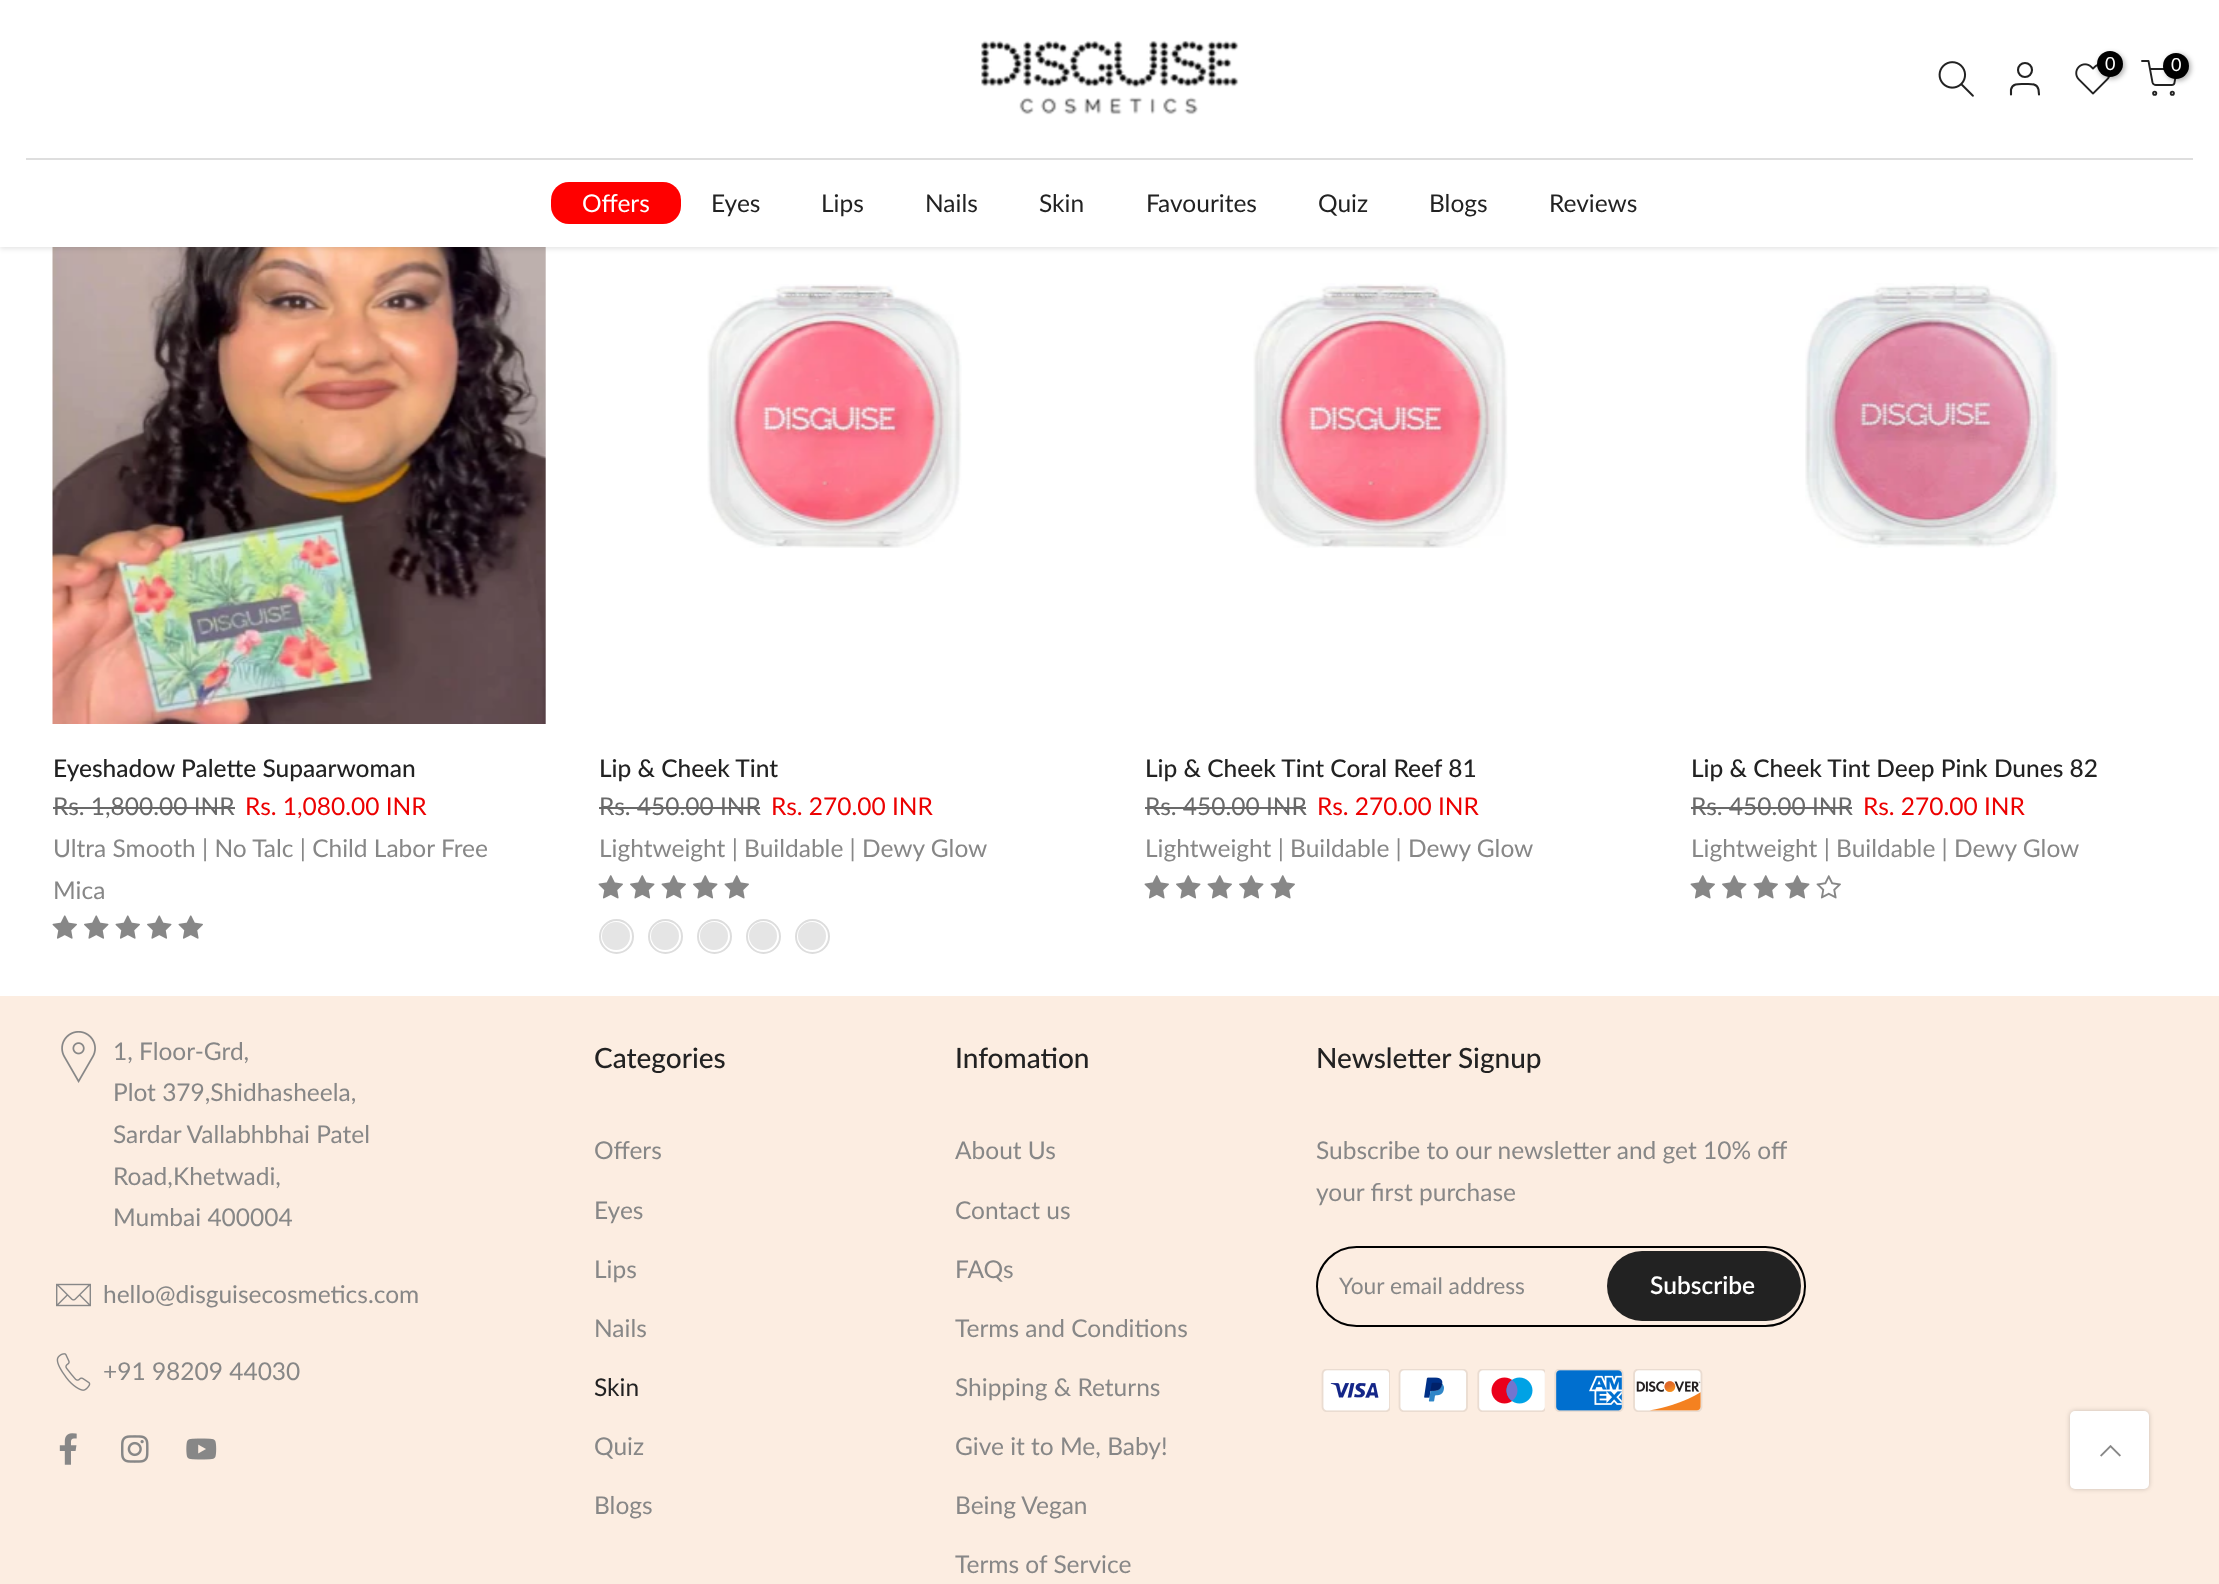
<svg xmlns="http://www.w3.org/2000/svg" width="2219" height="1584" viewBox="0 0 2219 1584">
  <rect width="100%" height="100%" fill="rgb(255,255,255)"/>
  <image x="52" y="247" width="494" height="477" href="pic4.png"/>
  <rect x="0" y="2" width="2219" height="247" fill="rgba(0,0,0,0.1)" filter="blur(2.5px)"/>
  <rect x="0" y="0" width="2219" height="247" fill="rgb(255,255,255)"/>
  <rect x="26" y="158" width="2167" height="2" fill="rgb(222,222,222)"/>
  <image x="981" y="40" width="258" height="75" href="pic1.png"/>
  <image x="1938" y="61" width="36" height="36" href="pic2.png"/>
  <circle cx="2025" cy="70" r="7" fill="none" stroke="rgb(34,34,34)" stroke-width="2.1"/>
  <path d="M2039 94.5L2038.5 89.5C2037 83 2030 84 2025 84C2019.5 84 2012.5 83 2011 89.5V94.5" fill="none" stroke="rgb(34,34,34)" stroke-width="2.1" stroke-linecap="round" stroke-linejoin="round"/>
  <image x="2075" y="63" width="36" height="32" href="pic3.png"/>
  <rect x="2098" y="53" width="27" height="26" rx="13" fill="rgba(0,0,0,0.3)" filter="blur(2.5px)"/>
  <circle cx="2110" cy="64" r="13" fill="rgb(0,0,0)"/>
  <text x="2105" y="70" font-family="Lato" font-size="18" fill="rgb(255,255,255)">0</text>
  <path d="M2142 61H2148.5L2152.5 82.5C2153 84 2154 85 2156 85H2171.5C2173 85 2174.5 84 2174.5 82.5L2177 69H2150" fill="none" stroke="rgb(34,34,34)" stroke-width="1.9" stroke-linecap="round" stroke-linejoin="round"/>
  <rect x="2165" y="54" width="26" height="27" rx="13" fill="rgba(0,0,0,0.3)" filter="blur(2.5px)"/>
  <circle cx="2176" cy="66" r="13" fill="rgb(0,0,0)"/>
  <text x="2171" y="71" font-family="Lato" font-size="18" fill="rgb(255,255,255)">0</text>
  <circle cx="2154.7" cy="93.2" r="1.6" fill="none" stroke="rgb(34,34,34)" stroke-width="1.9"/>
  <circle cx="2172.3" cy="93.2" r="1.6" fill="none" stroke="rgb(34,34,34)" stroke-width="1.9"/>
  <rect x="551" y="182" width="130" height="42" rx="18" fill="rgb(255,0,0)"/>
  <text x="582" y="212" font-family="Lato" font-size="24.5" fill="rgb(255,255,255)">Offers</text>
  <g font-family="Lato" font-size="24.5" fill="rgb(34,34,34)">
    <text x="711" y="212">Eyes</text>
    <text x="821" y="212">Lips</text>
    <text x="925" y="212">Nails</text>
    <text x="1039" y="212">Skin</text>
    <text x="1146" y="212">Favourites</text>
    <text x="1318" y="212">Quiz</text>
    <text x="1429" y="212">Blogs</text>
    <text x="1549" y="212">Reviews</text>
  </g>
  <text x="53" y="777" font-family="Lato" font-size="24.5" font-weight="500" fill="rgb(34,34,34)">Eyeshadow Palette Supaarwoman</text>
  <text x="53" y="815" font-family="Lato" font-size="24.5" fill="rgb(105,105,105)">Rs. 1,800.00 INR</text>
  <rect x="53" y="807" width="182" height="2" fill="rgb(105,105,105)"/>
  <text x="245" y="815" font-family="Lato" font-size="24.5" fill="rgb(236,1,1)">Rs. 1,080.00 INR</text>
  <g font-family="Lato" font-size="24.5" fill="rgb(135,135,135)">
    <text>
      <tspan x="53" y="857">Ultra Smooth | No Talc | Child Labor Free</tspan>
      <tspan x="53" y="899">Mica</tspan>
    </text>
  </g>
  <image x="52" y="915" width="25" height="24" href="pic5.png"/>
  <image x="84" y="915" width="25" height="24" href="pic6.png"/>
  <image x="115" y="915" width="25" height="24" href="pic5.png"/>
  <image x="147" y="915" width="25" height="24" href="pic6.png"/>
  <image x="178" y="915" width="25" height="24" href="pic5.png"/>
  <image x="707" y="284" width="255" height="264" href="pic7.png"/>
  <text x="599" y="777" font-family="Lato" font-size="24.5" font-weight="500" fill="rgb(34,34,34)">Lip &amp; Cheek Tint</text>
  <text x="599" y="815" font-family="Lato" font-size="24.5" fill="rgb(105,105,105)">Rs. 450.00 INR</text>
  <rect x="599" y="807" width="161" height="2" fill="rgb(105,105,105)"/>
  <text x="771" y="815" font-family="Lato" font-size="24.5" fill="rgb(236,1,1)">Rs. 270.00 INR</text>
  <text x="599" y="857" font-family="Lato" font-size="24.5" fill="rgb(135,135,135)">Lightweight | Buildable | Dewy Glow</text>
  <image x="598" y="875" width="25" height="24" href="pic8.png"/>
  <image x="630" y="875" width="25" height="24" href="pic9.png"/>
  <image x="661" y="875" width="25" height="24" href="pic8.png"/>
  <image x="693" y="875" width="25" height="24" href="pic9.png"/>
  <image x="724" y="875" width="25" height="24" href="pic8.png"/>
  <circle cx="616.5" cy="936.5" r="16.5" fill="none" stroke="rgb(221,221,221)" stroke-width="2"/>
  <circle cx="616" cy="936" r="14" fill="rgb(229,229,229)"/>
  <circle cx="665.5" cy="936.5" r="16.5" fill="none" stroke="rgb(221,221,221)" stroke-width="2"/>
  <circle cx="665" cy="936" r="14" fill="rgb(229,229,229)"/>
  <circle cx="714.5" cy="936.5" r="16.5" fill="none" stroke="rgb(221,221,221)" stroke-width="2"/>
  <circle cx="714" cy="936" r="14" fill="rgb(229,229,229)"/>
  <circle cx="763.5" cy="936.5" r="16.5" fill="none" stroke="rgb(221,221,221)" stroke-width="2"/>
  <circle cx="763" cy="936" r="14" fill="rgb(229,229,229)"/>
  <circle cx="812.5" cy="936.5" r="16.5" fill="none" stroke="rgb(221,221,221)" stroke-width="2"/>
  <circle cx="812" cy="936" r="14" fill="rgb(229,229,229)"/>
  <image x="1253" y="283" width="255" height="265" href="pic10.png"/>
  <text x="1145" y="777" font-family="Lato" font-size="24.5" font-weight="500" fill="rgb(34,34,34)">Lip &amp; Cheek Tint Coral Reef 81</text>
  <text x="1145" y="815" font-family="Lato" font-size="24.5" fill="rgb(105,105,105)">Rs. 450.00 INR</text>
  <rect x="1145" y="807" width="161" height="2" fill="rgb(105,105,105)"/>
  <text x="1317" y="815" font-family="Lato" font-size="24.5" fill="rgb(236,1,1)">Rs. 270.00 INR</text>
  <text x="1145" y="857" font-family="Lato" font-size="24.5" fill="rgb(135,135,135)">Lightweight | Buildable | Dewy Glow</text>
  <image x="1144" y="875" width="25" height="24" href="pic8.png"/>
  <image x="1176" y="875" width="25" height="24" href="pic9.png"/>
  <image x="1207" y="875" width="25" height="24" href="pic8.png"/>
  <image x="1239" y="875" width="25" height="24" href="pic9.png"/>
  <image x="1270" y="875" width="25" height="24" href="pic8.png"/>
  <image x="1805" y="283" width="253" height="265" href="pic11.png"/>
  <text x="1691" y="777" font-family="Lato" font-size="24.5" font-weight="500" fill="rgb(34,34,34)">Lip &amp; Cheek Tint Deep Pink Dunes 82</text>
  <text x="1691" y="815" font-family="Lato" font-size="24.5" fill="rgb(105,105,105)">Rs. 450.00 INR</text>
  <rect x="1691" y="807" width="161" height="2" fill="rgb(105,105,105)"/>
  <text x="1863" y="815" font-family="Lato" font-size="24.5" fill="rgb(236,1,1)">Rs. 270.00 INR</text>
  <text x="1691" y="857" font-family="Lato" font-size="24.5" fill="rgb(135,135,135)">Lightweight | Buildable | Dewy Glow</text>
  <image x="1690" y="875" width="25" height="24" href="pic8.png"/>
  <image x="1722" y="875" width="25" height="24" href="pic9.png"/>
  <image x="1753" y="875" width="25" height="24" href="pic8.png"/>
  <image x="1785" y="875" width="25" height="24" href="pic9.png"/>
  <image x="1816" y="875" width="25" height="24" href="pic12.png"/>
  <rect x="0" y="996" width="2219" height="588" fill="rgb(252,237,225)"/>
  <image x="61" y="1031" width="35" height="52" href="pic13.png"/>
  <g font-family="Lato" font-size="24.5" fill="rgb(135,135,135)">
    <text>
      <tspan x="113" y="1060">1, Floor-Grd,</tspan>
      <tspan x="113" y="1101">Plot 379,Shidhasheela,</tspan>
      <tspan x="113" y="1143">Sardar Vallabhbhai Patel</tspan>
      <tspan x="113" y="1185">Road,Khetwadi,</tspan>
      <tspan x="113" y="1226">Mumbai 400004</tspan>
    </text>
  </g>
  <image x="56" y="1283" width="35" height="24" href="pic14.png"/>
  <text x="103" y="1303" font-family="Lato" font-size="24.5" fill="rgb(135,135,135)">hello@disguisecosmetics.com</text>
  <image x="56" y="1353" width="35" height="38" href="pic15.png"/>
  <text x="103" y="1380" font-family="Lato" font-size="24.5" fill="rgb(135,135,135)">+91 98209 44030</text>
  <image x="59" y="1433" width="18" height="32" href="pic16.png"/>
  <image x="121" y="1435" width="28" height="28" href="pic17.png"/>
  <image x="186" y="1438" width="31" height="22" href="pic18.png"/>
  <text x="594" y="1068" font-family="Lato" font-size="28" font-weight="500" fill="rgb(34,34,34)">Categories</text>
  <g font-family="Lato" font-size="24.5" fill="rgb(135,135,135)">
    <text x="594" y="1159">Offers</text>
    <text x="594" y="1219">Eyes</text>
    <text x="594" y="1278">Lips</text>
    <text x="594" y="1337">Nails</text>
  </g>
  <text x="594" y="1396" font-family="Lato" font-size="24.5" fill="rgb(34,34,34)">Skin</text>
  <g font-family="Lato" font-size="24.5" fill="rgb(135,135,135)">
    <text x="594" y="1455">Quiz</text>
    <text x="594" y="1514">Blogs</text>
  </g>
  <text x="955" y="1068" font-family="Lato" font-size="28" font-weight="500" fill="rgb(34,34,34)">Infomation</text>
  <g font-family="Lato" font-size="24.5" fill="rgb(135,135,135)">
    <text x="955" y="1159">About Us</text>
    <text x="955" y="1219">Contact us</text>
    <text x="955" y="1278">FAQs</text>
    <text x="955" y="1337">Terms and Conditions</text>
    <text x="955" y="1396">Shipping &amp; Returns</text>
    <text x="955" y="1455">Give it to Me, Baby!</text>
    <text x="955" y="1514">Being Vegan</text>
    <text x="955" y="1573">Terms of Service</text>
  </g>
  <text x="1316" y="1068" font-family="Lato" font-size="28" font-weight="500" fill="rgb(34,34,34)">Newsletter Signup</text>
  <g font-family="Lato" font-size="24.5" fill="rgb(135,135,135)">
    <text>
      <tspan x="1316" y="1159">Subscribe to our newsletter and get 10% off</tspan>
      <tspan x="1316" y="1201">your first purchase</tspan>
    </text>
  </g>
  <rect x="1317" y="1247" width="488" height="79" rx="39.5" fill="none" stroke="rgb(0,0,0)" stroke-width="2"/>
  <text x="1339" y="1294" font-family="Lato" font-size="22.75" fill="rgb(135,135,135)">Your email address</text>
  <rect x="1607" y="1251" width="194" height="70" rx="35" fill="rgb(34,34,34)"/>
  <text x="1650" y="1294" font-family="Lato" font-size="24.5" font-weight="600" fill="rgb(255,255,255)">Subscribe</text>
  <image x="1321" y="1369" width="69" height="43" href="pic19.png"/>
  <image x="1398" y="1369" width="70" height="43" href="pic20.png"/>
  <image x="1477" y="1369" width="68" height="43" href="pic21.png"/>
  <image x="1554" y="1369" width="70" height="43" href="pic22.png"/>
  <image x="1633" y="1369" width="70" height="43" href="pic23.png"/>
  <rect x="2070" y="1411" width="79" height="78" rx="5" fill="rgba(0,0,0,0.2)" filter="blur(2.5px)"/>
  <rect x="2070" y="1411" width="79" height="78" rx="5" fill="rgb(255,255,255)"/>
  <image x="2100" y="1445" width="21" height="12" href="pic24.png"/>
</svg>
